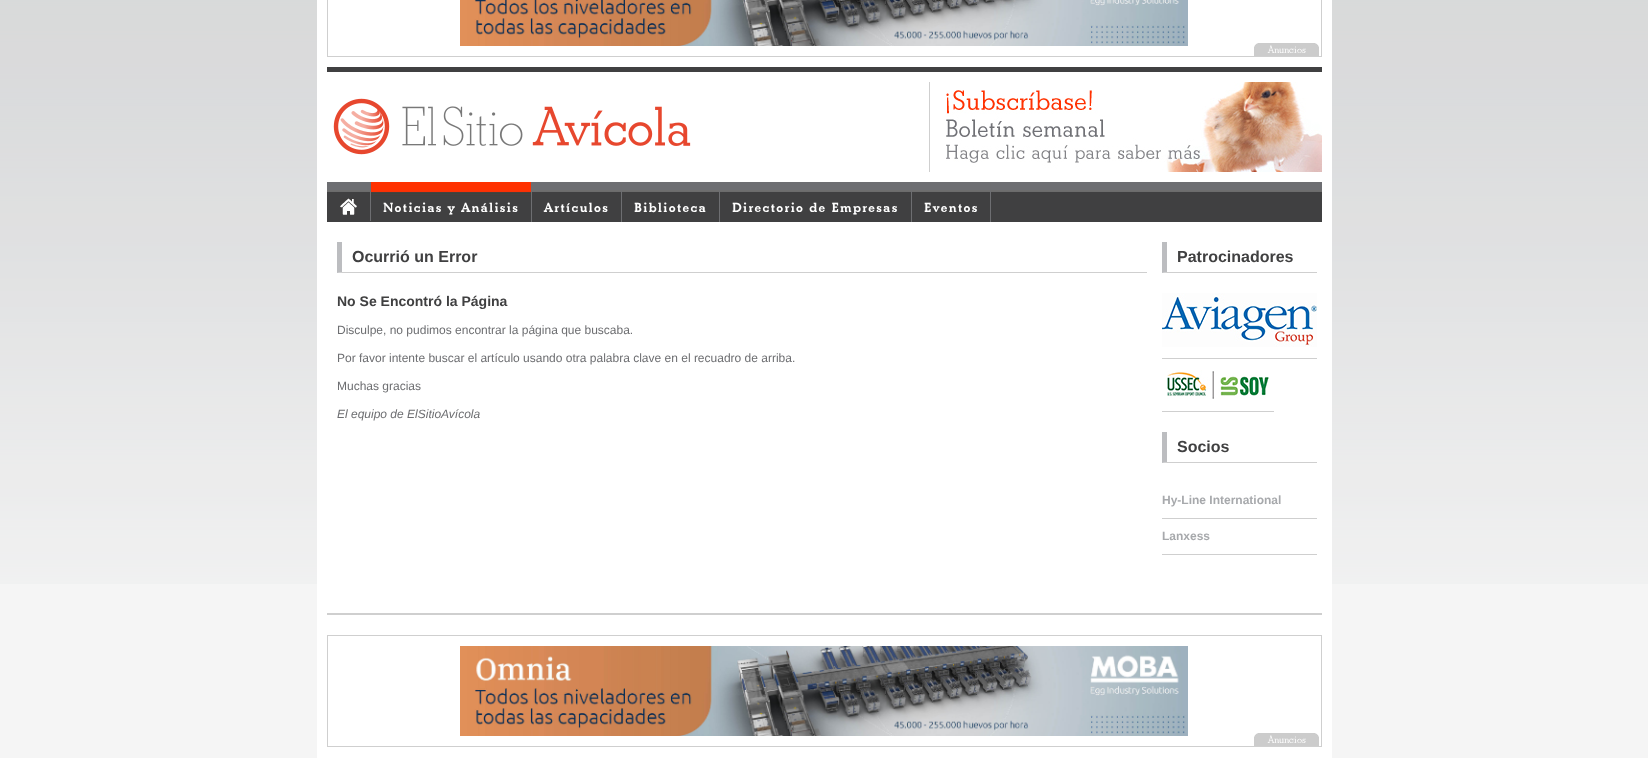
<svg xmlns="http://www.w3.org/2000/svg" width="1648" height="758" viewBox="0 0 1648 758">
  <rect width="100%" height="100%" fill="rgb(245,245,245)"/>
  <image x="0" y="0" width="1648" height="584" href="pic1.png"/>
  <rect x="317" y="0" width="1015" height="758" fill="rgb(255,255,255)"/>
  <image x="1254" y="43" width="65" height="13" href="pic2.png"/>
  <rect x="327.5" y="-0.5" width="994" height="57" fill="none" stroke="rgb(207,207,207)"/>
  <image x="460" y="0" width="728" height="46" href="pic3.png"/>
  <rect x="327" y="67" width="995" height="5" fill="rgb(64,64,65)"/>
  <image x="333" y="98" width="358" height="57" href="pic4.png"/>
  <rect x="929" y="82" width="1" height="90" fill="rgb(207,207,207)"/>
  <image x="946" y="82" width="376" height="90" href="pic5.png"/>
  <rect x="327" y="192" width="995" height="30" fill="rgb(64,64,65)"/>
  <image x="991" y="182" width="331" height="10" href="pic6.png"/>
  <image x="327" y="182" width="43" height="10" href="pic7.png"/>
  <rect x="370" y="182" width="1" height="39" fill="rgb(109,110,113)"/>
  <image x="340" y="198" width="17" height="17" href="pic8.png"/>
  <image x="371" y="182" width="160" height="14" href="pic9.png"/>
  <rect x="531" y="182" width="1" height="40" fill="rgb(109,110,113)"/>
  <text x="383" y="212" font-family="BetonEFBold" font-size="14" font-weight="bold" letter-spacing="1.4" fill="rgb(255,255,255)">Noticias y Análisis</text>
  <image x="532" y="182" width="89" height="10" href="pic10.png"/>
  <rect x="621" y="182" width="1" height="40" fill="rgb(109,110,113)"/>
  <text x="544" y="212" font-family="BetonEFBold" font-size="14" font-weight="bold" letter-spacing="1.4" fill="rgb(255,255,255)">Artículos</text>
  <image x="622" y="182" width="97" height="10" href="pic11.png"/>
  <rect x="719" y="182" width="1" height="40" fill="rgb(109,110,113)"/>
  <text x="634" y="212" font-family="BetonEFBold" font-size="14" font-weight="bold" letter-spacing="1.4" fill="rgb(255,255,255)">Biblioteca</text>
  <image x="720" y="182" width="191" height="10" href="pic12.png"/>
  <rect x="911" y="182" width="1" height="40" fill="rgb(109,110,113)"/>
  <text x="732" y="212" font-family="BetonEFBold" font-size="14" font-weight="bold" letter-spacing="1.4" fill="rgb(255,255,255)">Directorio de Empresas</text>
  <image x="912" y="182" width="78" height="10" href="pic13.png"/>
  <rect x="990" y="182" width="1" height="40" fill="rgb(109,110,113)"/>
  <text x="924" y="212" font-family="BetonEFBold" font-size="14" font-weight="bold" letter-spacing="1.4" fill="rgb(255,255,255)">Eventos</text>
  <path d="M1147 273H337L342 272H1147Z" fill="rgb(207,207,207)"/>
  <path d="M337 273V242H342V272Z" fill="rgb(188,189,192)"/>
  <text x="352" y="262" font-family="Liberation Sans" font-size="16" font-weight="bold" fill="rgb(64,64,65)">Ocurrió un Error</text>
  <text x="337" y="306" font-family="Liberation Sans" font-size="14" font-weight="bold" fill="rgb(64,64,65)">No Se Encontró la Página</text>
  <g font-family="Liberation Sans" font-size="12" fill="rgb(109,110,113)">
    <text x="337" y="334">Disculpe, no pudimos encontrar la página que buscaba.</text>
    <text x="337" y="362">Por favor intente buscar el artículo usando otra palabra clave en el recuadro de arriba.</text>
    <text x="337" y="390">Muchas gracias</text>
  </g>
  <text x="337" y="418" font-family="Liberation Sans" font-size="12" font-style="italic" fill="rgb(109,110,113)">El equipo de ElSitioAvícola</text>
  <path d="M1317 273H1162L1167 272H1317Z" fill="rgb(207,207,207)"/>
  <path d="M1162 273V242H1167V272Z" fill="rgb(188,189,192)"/>
  <text x="1177" y="262" font-family="Liberation Sans" font-size="16" font-weight="bold" fill="rgb(64,64,65)">Patrocinadores</text>
  <image x="1162" y="293" width="155" height="54" href="pic14.png"/>
  <rect x="1162" y="358" width="155" height="1" fill="rgb(207,207,207)"/>
  <image x="1167" y="370" width="102" height="29" href="pic15.png"/>
  <rect x="1162" y="411" width="112" height="1" fill="rgb(207,207,207)"/>
  <path d="M1317 463H1162L1167 462H1317Z" fill="rgb(207,207,207)"/>
  <path d="M1162 463V432H1167V462Z" fill="rgb(188,189,192)"/>
  <text x="1177" y="452" font-family="Liberation Sans" font-size="16" font-weight="bold" fill="rgb(64,64,65)">Socios</text>
  <rect x="1162" y="518" width="155" height="1" fill="rgb(207,207,207)"/>
  <text x="1162" y="504" font-family="Liberation Sans" font-size="12" font-weight="bold" fill="rgb(167,169,172)">Hy-Line International</text>
  <rect x="1162" y="554" width="155" height="1" fill="rgb(207,207,207)"/>
  <text x="1162" y="540" font-family="Liberation Sans" font-size="12" font-weight="bold" fill="rgb(167,169,172)">Lanxess</text>
  <rect x="327" y="613" width="995" height="2" fill="rgb(207,207,207)"/>
  <image x="1254" y="733" width="65" height="13" href="pic2.png"/>
  <rect x="327.5" y="635.5" width="994" height="111" fill="none" stroke="rgb(207,207,207)"/>
  <image x="460" y="646" width="728" height="90" href="pic16.png"/>
</svg>
